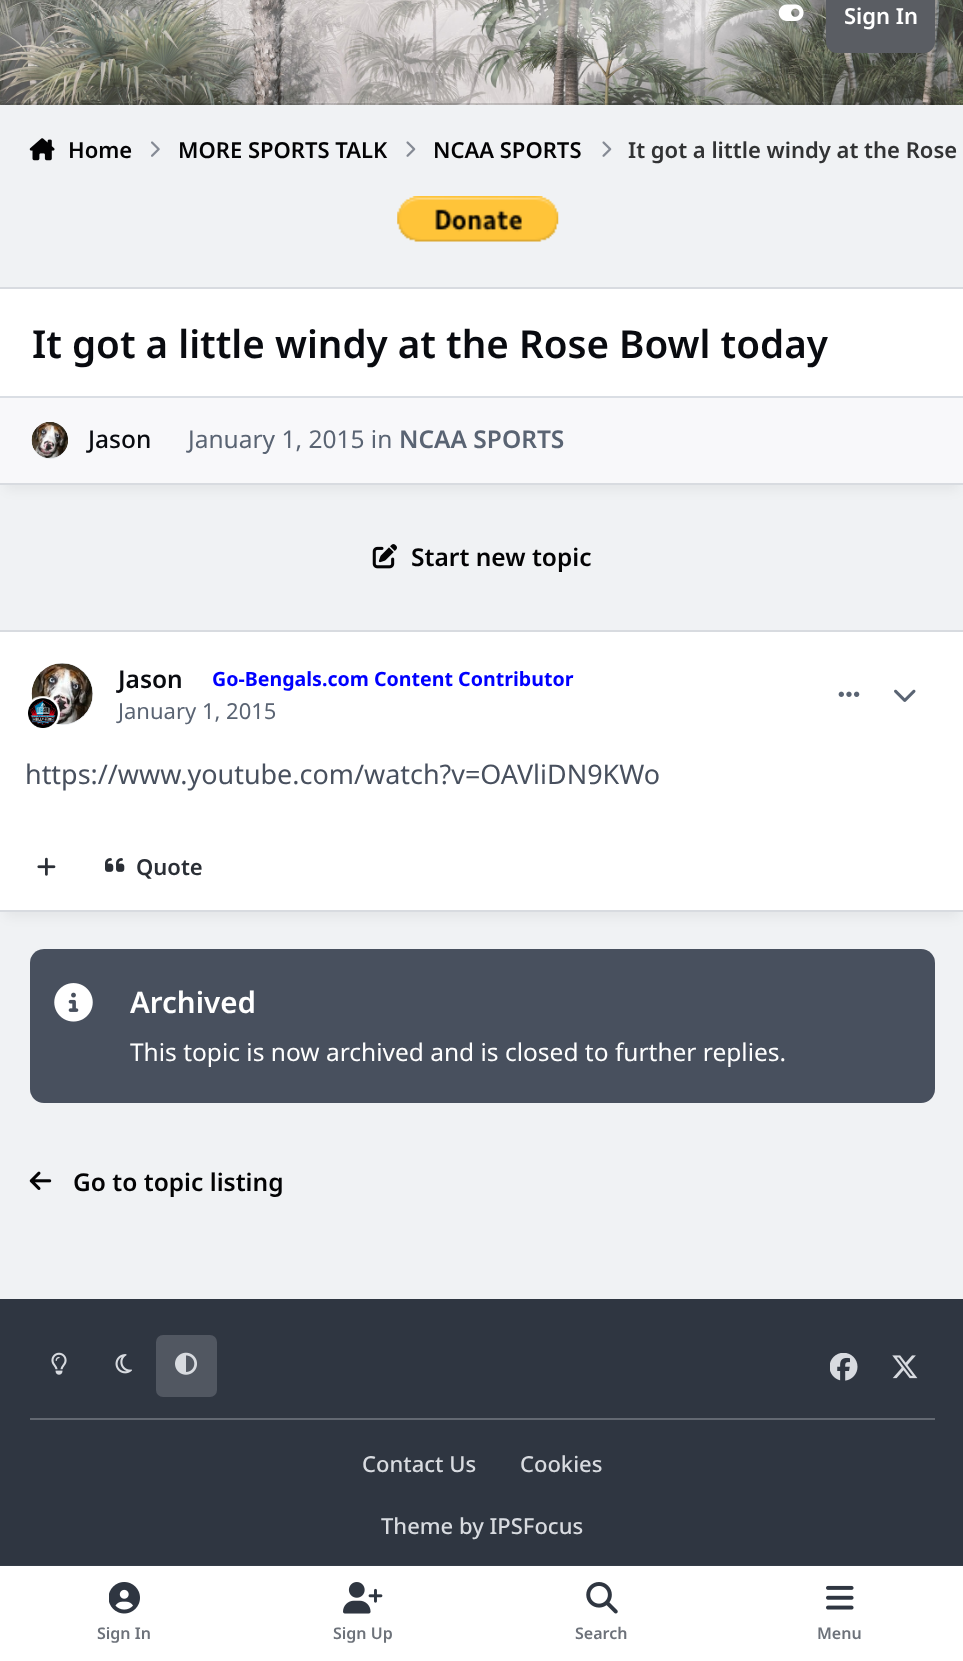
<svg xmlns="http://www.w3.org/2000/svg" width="963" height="1661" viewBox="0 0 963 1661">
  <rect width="100%" height="100%" fill="rgb(240,242,244)"/>
  <image x="0" y="0" width="963" height="105" href="pic1.png"/>
  <rect x="0" y="103" width="963" height="2" fill="rgba(9,11,16,0.15)"/>
  <image x="778" y="4" width="26" height="17" href="pic2.png"/>
  <rect x="826" y="-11" width="109" height="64" rx="11" fill="rgb(90,93,99)"/>
  <text x="844" y="24" font-family="Noto Sans" font-size="22" font-weight="600" fill="rgb(255,255,255)">Sign In</text>
  <image x="29" y="138" width="26" height="23" href="pic3.png"/>
  <text x="68" y="158" font-family="Noto Sans" font-size="22" font-weight="600" fill="rgb(3,3,4)">Home</text>
  <image x="151" y="141" width="9" height="16" href="pic4.png"/>
  <text x="178" y="158" font-family="Noto Sans" font-size="22" font-weight="600" fill="rgb(3,3,4)">MORE SPORTS TALK</text>
  <image x="406" y="141" width="10" height="16" href="pic5.png"/>
  <text x="433" y="158" font-family="Noto Sans" font-size="22" font-weight="600" fill="rgb(3,3,4)">NCAA SPORTS</text>
  <image x="602" y="141" width="10" height="16" href="pic5.png"/>
  <text x="628" y="158" font-family="Noto Sans" font-size="22" font-weight="600" fill="rgb(50,51,52)">It got a little windy at the Rose</text>
  <image x="397" y="196" width="162" height="46" href="pic6.png"/>
  <rect x="5" y="303" width="954" height="187" fill="rgba(2,3,6,0.05)" filter="blur(6px)"/>
  <rect x="0" y="289" width="963" height="107" fill="rgb(255,255,255)"/>
  <rect x="0" y="287" width="963" height="2" fill="rgb(216,219,224)"/>
  <rect x="0" y="483" width="963" height="2" fill="rgb(216,219,224)"/>
  <text x="32" y="358" font-family="Noto Sans" font-size="38.6" font-weight="600" fill="rgb(9,11,16)">It got a little windy at the Rose Bowl today</text>
  <rect x="0" y="398" width="963" height="85" fill="rgb(248,248,250)"/>
  <rect x="0" y="396" width="963" height="2" fill="rgb(218,222,228)"/>
  <rect x="32" y="422" width="36" height="37" rx="18" fill="rgb(231,234,238)"/>
  <image x="31" y="422" width="37" height="37" href="pic7.png"/>
  <text x="88" y="448" font-family="Noto Sans" font-size="24.5" font-weight="500" fill="rgb(9,11,16)">Jason</text>
  <text x="188" y="448" font-family="Noto Sans" font-size="24.5" fill="rgb(90,100,115)">January 1, 2015 in</text>
  <text x="399" y="448" font-family="Noto Sans" font-size="24.5" font-weight="600" fill="rgb(90,100,115)">NCAA SPORTS</text>
  <image x="372" y="544" width="25" height="25" href="pic8.png"/>
  <text x="411" y="566" font-family="Noto Sans" font-size="24.5" font-weight="600" fill="rgb(3,3,4)">Start new topic</text>
  <rect x="5" y="646" width="954" height="271" fill="rgba(2,3,6,0.05)" filter="blur(6px)"/>
  <rect x="0" y="632" width="963" height="278" fill="rgb(255,255,255)"/>
  <rect x="0" y="630" width="963" height="2" fill="rgb(216,219,224)"/>
  <rect x="0" y="910" width="963" height="2" fill="rgb(216,219,224)"/>
  <rect x="32" y="663" width="61" height="62" rx="30.5" fill="rgb(231,234,238)"/>
  <image x="31" y="663" width="62" height="62" href="pic9.png"/>
  <image x="28" y="696" width="32" height="32" href="pic10.png"/>
  <text x="118" y="688" font-family="Noto Sans" font-size="24.5" font-weight="600" fill="rgb(9,11,16)">Jason</text>
  <text x="212" y="686" font-family="Noto Sans" font-size="19.6" font-weight="bold" fill="rgb(0,0,255)">Go-Bengals.com Content Contributor</text>
  <text x="118" y="719" font-family="Noto Sans" font-size="22" fill="rgb(90,100,115)">January 1, 2015</text>
  <image x="838" y="691" width="22" height="6" href="pic11.png"/>
  <image x="894" y="689" width="22" height="13" href="pic12.png"/>
  <text x="25" y="784" font-family="Noto Sans" font-size="26.95" fill="rgb(72,80,94)">https://www.youtube.com/watch?v=OAVliDN9KWo</text>
  <image x="37" y="857" width="19" height="19" href="pic13.png"/>
  <image x="105" y="858" width="20" height="14" href="pic14.png"/>
  <text x="136" y="875" font-family="Noto Sans" font-size="22" font-weight="600" fill="rgb(43,47,54)">Quote</text>
  <rect x="30" y="949" width="905" height="154" rx="14" fill="rgb(72,80,94)"/>
  <image x="54" y="983" width="39" height="39" href="pic15.png"/>
  <text x="130" y="1013" font-family="Noto Sans" font-size="29.5" font-weight="600" fill="rgb(255,255,255)">Archived</text>
  <text x="130" y="1061" font-family="Noto Sans" font-size="24.5" fill="rgb(255,255,255)">This topic is now archived and is closed to further replies.</text>
  <image x="29" y="1171" width="23" height="19" href="pic16.png"/>
  <text x="73" y="1191" font-family="Noto Sans" font-size="24.5" font-weight="600" fill="rgb(3,3,4)">Go to topic listing</text>
  <rect x="0" y="1299" width="963" height="266" fill="rgb(47,54,65)"/>
  <image x="51" y="1352" width="16" height="23" href="pic17.png"/>
  <image x="115" y="1354" width="17" height="20" href="pic18.png"/>
  <rect x="156" y="1335" width="61" height="62" rx="7" fill="rgb(81,87,97)"/>
  <image x="175" y="1352" width="22" height="23" href="pic19.png"/>
  <image x="830" y="1353" width="28" height="28" href="pic20.png"/>
  <image x="892" y="1355" width="26" height="24" href="pic21.png"/>
  <rect x="30" y="1418" width="905" height="2" fill="rgb(98,104,113)"/>
  <g font-family="Noto Sans" font-size="22" font-weight="500" fill="rgb(216,219,224)">
    <text x="362" y="1472">Contact Us</text>
    <text x="520" y="1472">Cookies</text>
    <text x="381" y="1534">Theme by IPSFocus</text>
  </g>
  <rect x="0" y="1565" width="963" height="1" fill="rgb(53,61,72)"/>
  <rect x="0" y="1566" width="963" height="95" fill="rgb(255,255,255)"/>
  <image x="109" y="1582" width="31" height="32" href="pic22.png"/>
  <text x="97" y="1639" font-family="Noto Sans" font-size="16" font-weight="600" fill="rgb(109,114,122)">Sign In</text>
  <image x="343" y="1582" width="40" height="32" href="pic23.png"/>
  <text x="333" y="1639" font-family="Noto Sans" font-size="16" font-weight="600" fill="rgb(109,114,122)">Sign Up</text>
  <image x="586" y="1582" width="32" height="32" href="pic24.png"/>
  <text x="575" y="1639" font-family="Noto Sans" font-size="16" font-weight="600" fill="rgb(109,114,122)">Search</text>
  <image x="826" y="1585" width="28" height="25" href="pic25.png"/>
  <text x="817" y="1639" font-family="Noto Sans" font-size="16" font-weight="600" fill="rgb(109,114,122)">Menu</text>
</svg>
